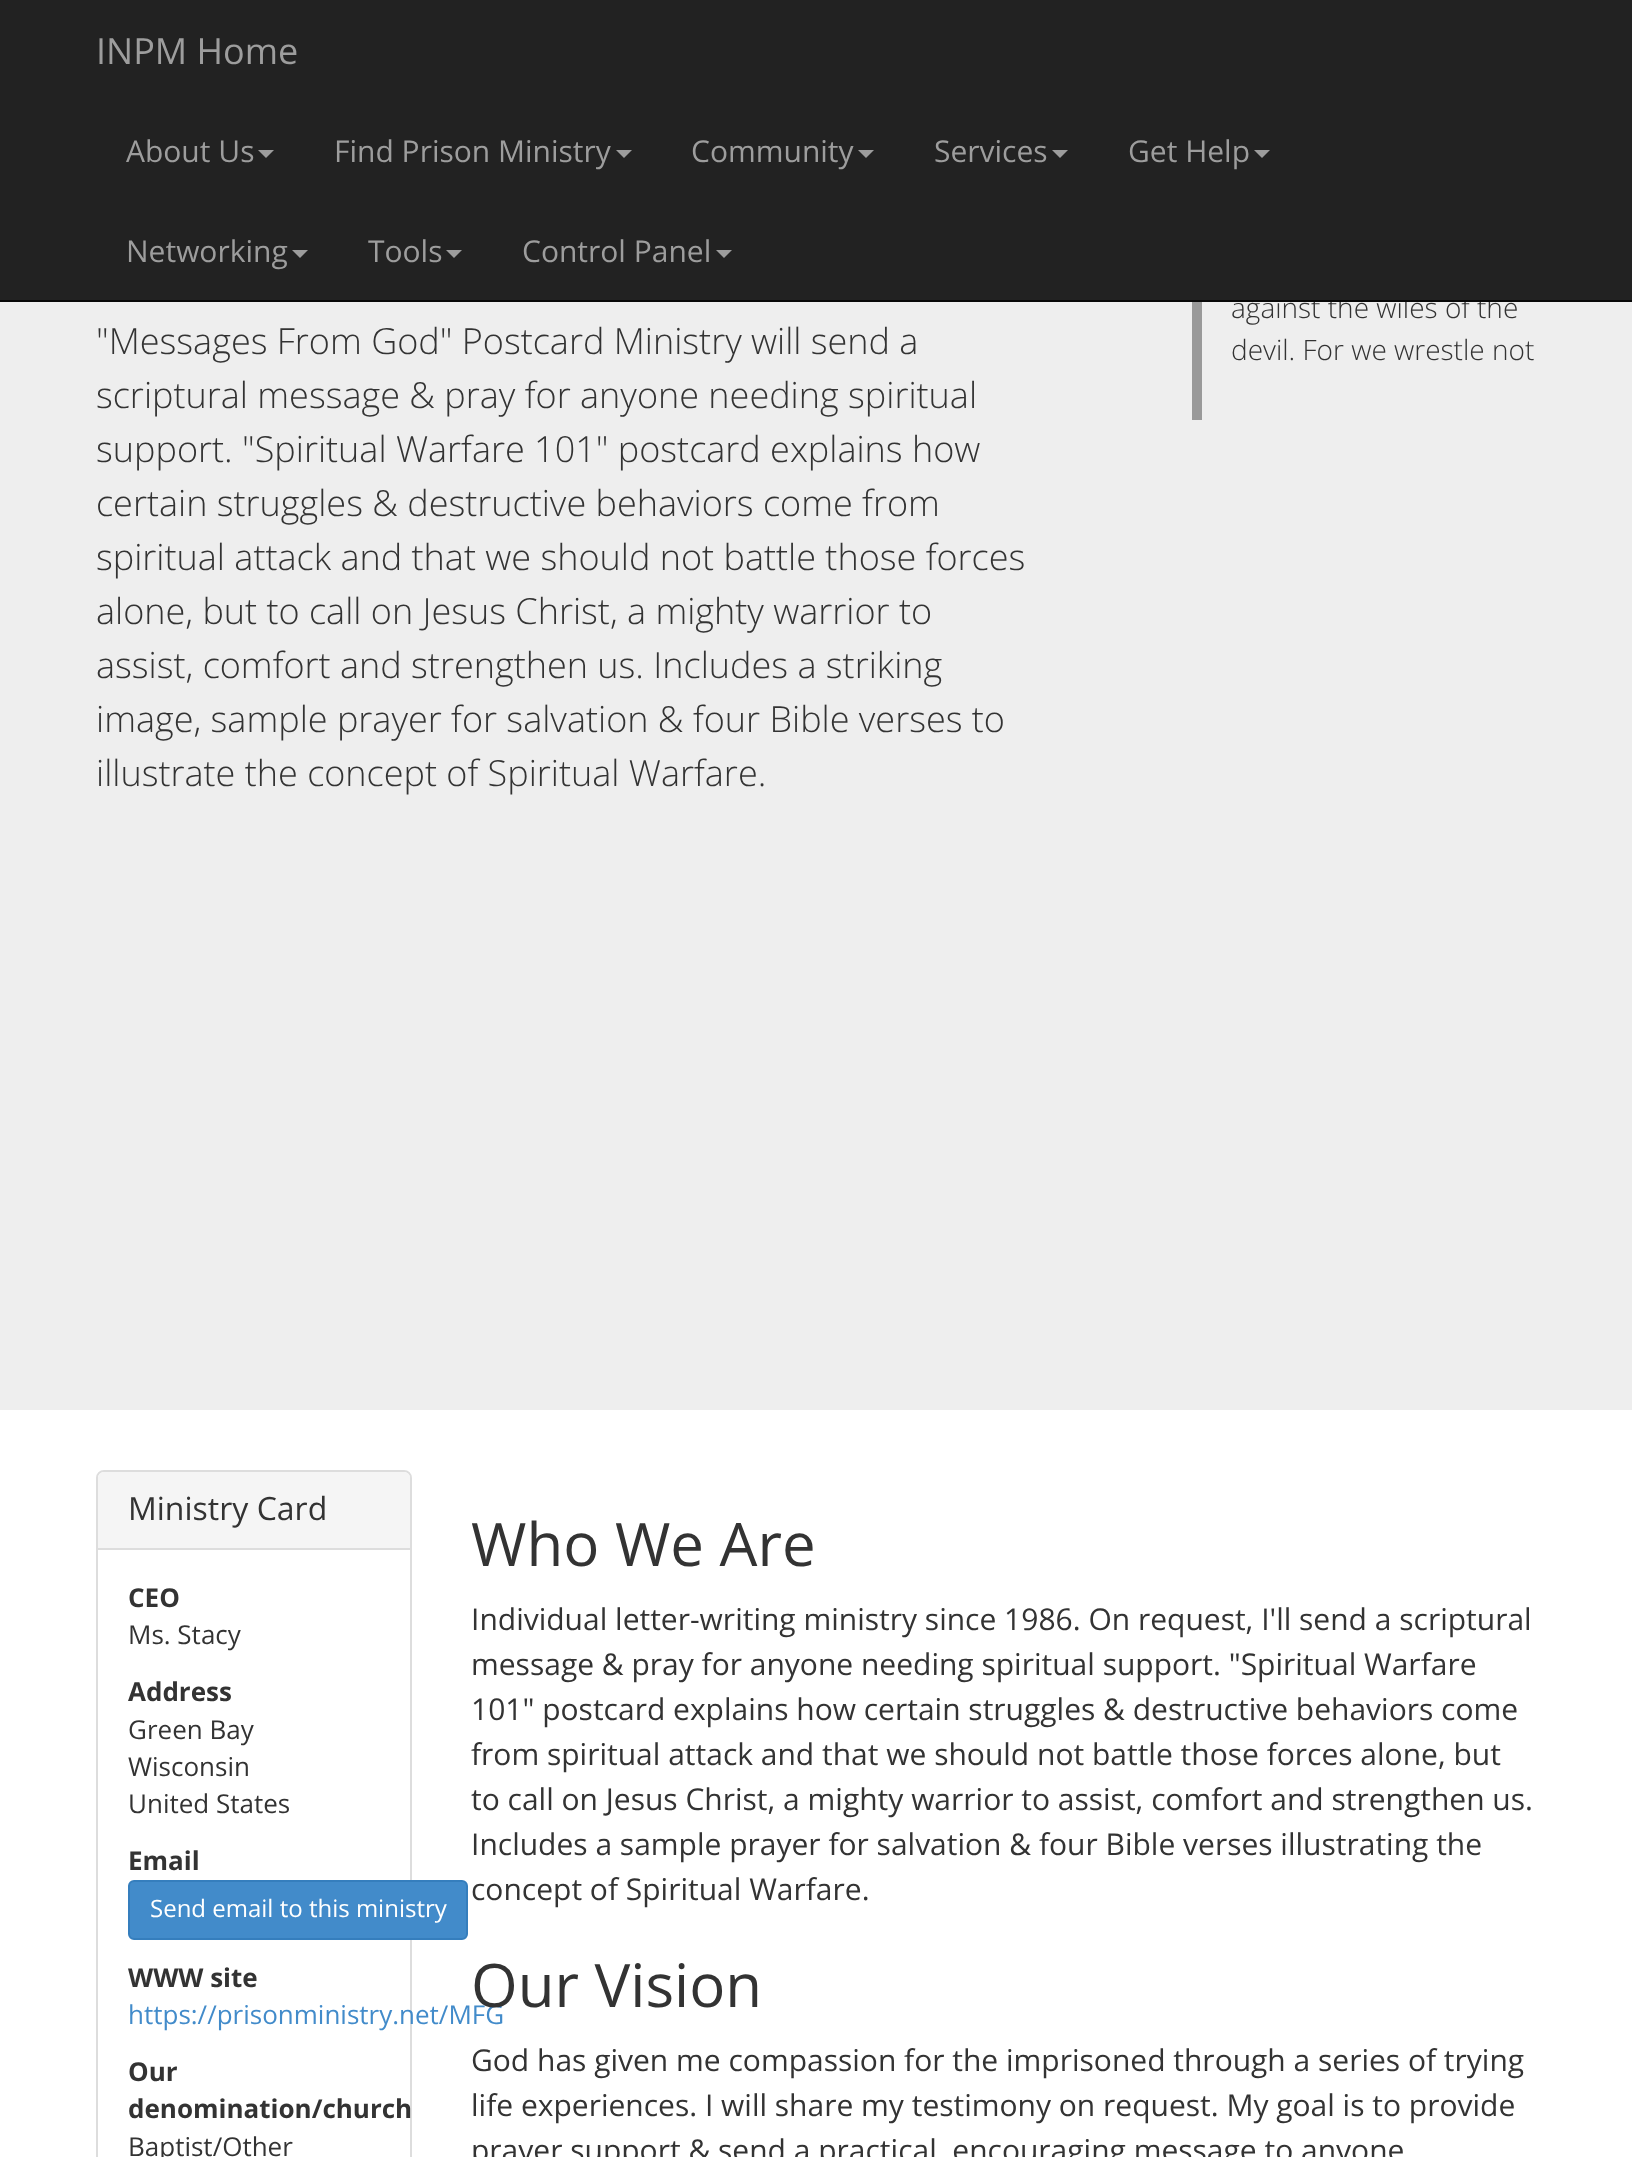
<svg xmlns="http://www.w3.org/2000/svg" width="1632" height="2157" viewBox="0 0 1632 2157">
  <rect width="100%" height="100%" fill="rgb(255,255,255)"/>
  <rect x="0" y="302" width="1632" height="1108" fill="rgb(238,238,238)"/>
  <text x="1231" y="318" font-family="Open Sans" font-size="28" font-weight="300" fill="rgb(51,51,51)">against the wiles of the</text>
  <rect x="0" y="0" width="1632" height="300" fill="rgb(34,34,34)"/>
  <rect x="0" y="300" width="1632" height="2" fill="rgb(8,8,8)"/>
  <text x="96" y="64" font-family="Open Sans" font-size="36" fill="rgb(157,157,157)">INPM Home</text>
  <text x="126" y="162" font-family="Open Sans" font-size="30" fill="rgb(157,157,157)">About Us</text>
  <path d="M258 150H274L266 158Z" fill="rgb(157,157,157)"/>
  <text x="334" y="162" font-family="Open Sans" font-size="30" fill="rgb(157,157,157)">Find Prison Ministry</text>
  <path d="M616 150H632L624 158Z" fill="rgb(157,157,157)"/>
  <text x="691" y="162" font-family="Open Sans" font-size="30" fill="rgb(157,157,157)">Community</text>
  <path d="M858 150H874L866 158Z" fill="rgb(157,157,157)"/>
  <text x="934" y="162" font-family="Open Sans" font-size="30" fill="rgb(157,157,157)">Services</text>
  <path d="M1052 150H1068L1060 158Z" fill="rgb(157,157,157)"/>
  <text x="1128" y="162" font-family="Open Sans" font-size="30" fill="rgb(157,157,157)">Get Help</text>
  <path d="M1254 150H1270L1262 158Z" fill="rgb(157,157,157)"/>
  <text x="126" y="262" font-family="Open Sans" font-size="30" fill="rgb(157,157,157)">Networking</text>
  <path d="M292 250H308L300 258Z" fill="rgb(157,157,157)"/>
  <text x="368" y="262" font-family="Open Sans" font-size="30" fill="rgb(157,157,157)">Tools</text>
  <path d="M446 250H462L454 258Z" fill="rgb(157,157,157)"/>
  <text x="522" y="262" font-family="Open Sans" font-size="30" fill="rgb(157,157,157)">Control Panel</text>
  <path d="M716 250H732L724 258Z" fill="rgb(157,157,157)"/>
  <g font-family="Open Sans" font-size="36" font-weight="300" fill="rgb(51,51,51)">
    <text>
      <tspan x="96" y="354">"Messages From God" Postcard Ministry will send a</tspan>
      <tspan x="96" y="408">scriptural message &amp; pray for anyone needing spiritual</tspan>
      <tspan x="96" y="462">support. "Spiritual Warfare 101" postcard explains how</tspan>
      <tspan x="96" y="516">certain struggles &amp; destructive behaviors come from</tspan>
      <tspan x="96" y="570">spiritual attack and that we should not battle those forces</tspan>
      <tspan x="96" y="624">alone, but to call on Jesus Christ, a mighty warrior to</tspan>
      <tspan x="96" y="678">assist, comfort and strengthen us. Includes a striking</tspan>
      <tspan x="96" y="732">image, sample prayer for salvation &amp; four Bible verses to</tspan>
      <tspan x="96" y="786">illustrate the concept of Spiritual Warfare.</tspan>
    </text>
  </g>
  <rect x="1192" y="302" width="10" height="118" fill="rgb(153,153,153)"/>
  <text x="1231" y="360" font-family="Open Sans" font-size="28" font-weight="300" fill="rgb(51,51,51)">devil. For we wrestle not</text>
  <rect x="97" y="1471" width="314" height="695" rx="7" fill="none" stroke="rgb(221,221,221)" stroke-width="2"/>
  <path d="M104 1472H404C407.5 1472 410 1474.5 410 1478V1550H98V1478C98 1474.5 100.5 1472 104 1472Z" fill="rgb(245,245,245)"/>
  <rect x="98" y="1548" width="312" height="2" fill="rgb(221,221,221)"/>
  <text x="128" y="1520" font-family="Open Sans" font-size="32" fill="rgb(51,51,51)">Ministry Card</text>
  <text x="128" y="1607" font-family="Open Sans" font-size="26" font-weight="bold" fill="rgb(51,51,51)">CEO</text>
  <text x="128" y="1644" font-family="Open Sans" font-size="26" fill="rgb(51,51,51)">Ms. Stacy</text>
  <text x="128" y="1701" font-family="Open Sans" font-size="26" font-weight="bold" fill="rgb(51,51,51)">Address</text>
  <g font-family="Open Sans" font-size="26" fill="rgb(51,51,51)">
    <text>
      <tspan x="128" y="1739">Green Bay</tspan>
      <tspan x="128" y="1776">Wisconsin</tspan>
      <tspan x="128" y="1813">United States</tspan>
    </text>
  </g>
  <text x="128" y="1870" font-family="Open Sans" font-size="26" font-weight="bold" fill="rgb(51,51,51)">Email</text>
  <rect x="129" y="1881" width="338" height="58" rx="5" fill="rgb(66,139,202)" stroke="rgb(53,126,189)" stroke-width="2"/>
  <text x="150" y="1917" font-family="Open Sans" font-size="24" fill="rgb(255,255,255)">Send email to this ministry</text>
  <text x="128" y="1987" font-family="Open Sans" font-size="26" font-weight="bold" fill="rgb(51,51,51)">WWW site</text>
  <text x="128" y="2024" font-family="Open Sans" font-size="26" fill="rgb(66,139,202)">https://prisonministry.net/MFG</text>
  <g font-family="Open Sans" font-size="26" font-weight="bold" fill="rgb(51,51,51)">
    <text>
      <tspan x="128" y="2081">Our</tspan>
      <tspan x="128" y="2118">denomination/church</tspan>
    </text>
  </g>
  <text x="128" y="2156" font-family="Open Sans" font-size="26" fill="rgb(51,51,51)">Baptist/Other</text>
  <text x="471" y="1566" font-family="Open Sans" font-size="60" fill="rgb(51,51,51)">Who We Are</text>
  <g font-family="Open Sans" font-size="30" fill="rgb(51,51,51)">
    <text>
      <tspan x="471" y="1630">Individual letter-writing ministry since 1986. On request, I'll send a scriptural</tspan>
      <tspan x="471" y="1675">message &amp; pray for anyone needing spiritual support. "Spiritual Warfare</tspan>
      <tspan x="471" y="1720">101" postcard explains how certain struggles &amp; destructive behaviors come</tspan>
      <tspan x="471" y="1765">from spiritual attack and that we should not battle those forces alone, but</tspan>
      <tspan x="471" y="1810">to call on Jesus Christ, a mighty warrior to assist, comfort and strengthen us.</tspan>
      <tspan x="471" y="1855">Includes a sample prayer for salvation &amp; four Bible verses illustrating the</tspan>
      <tspan x="471" y="1900">concept of Spiritual Warfare.</tspan>
    </text>
  </g>
  <text x="471" y="2007" font-family="Open Sans" font-size="60" fill="rgb(51,51,51)">Our Vision</text>
  <g font-family="Open Sans" font-size="30" fill="rgb(51,51,51)">
    <text>
      <tspan x="471" y="2071">God has given me compassion for the imprisoned through a series of trying</tspan>
      <tspan x="471" y="2116">life experiences. I will share my testimony on request. My goal is to provide</tspan>
      <tspan x="471" y="2161">prayer support &amp; send a practical, encouraging message to anyone</tspan>
    </text>
  </g>
</svg>
